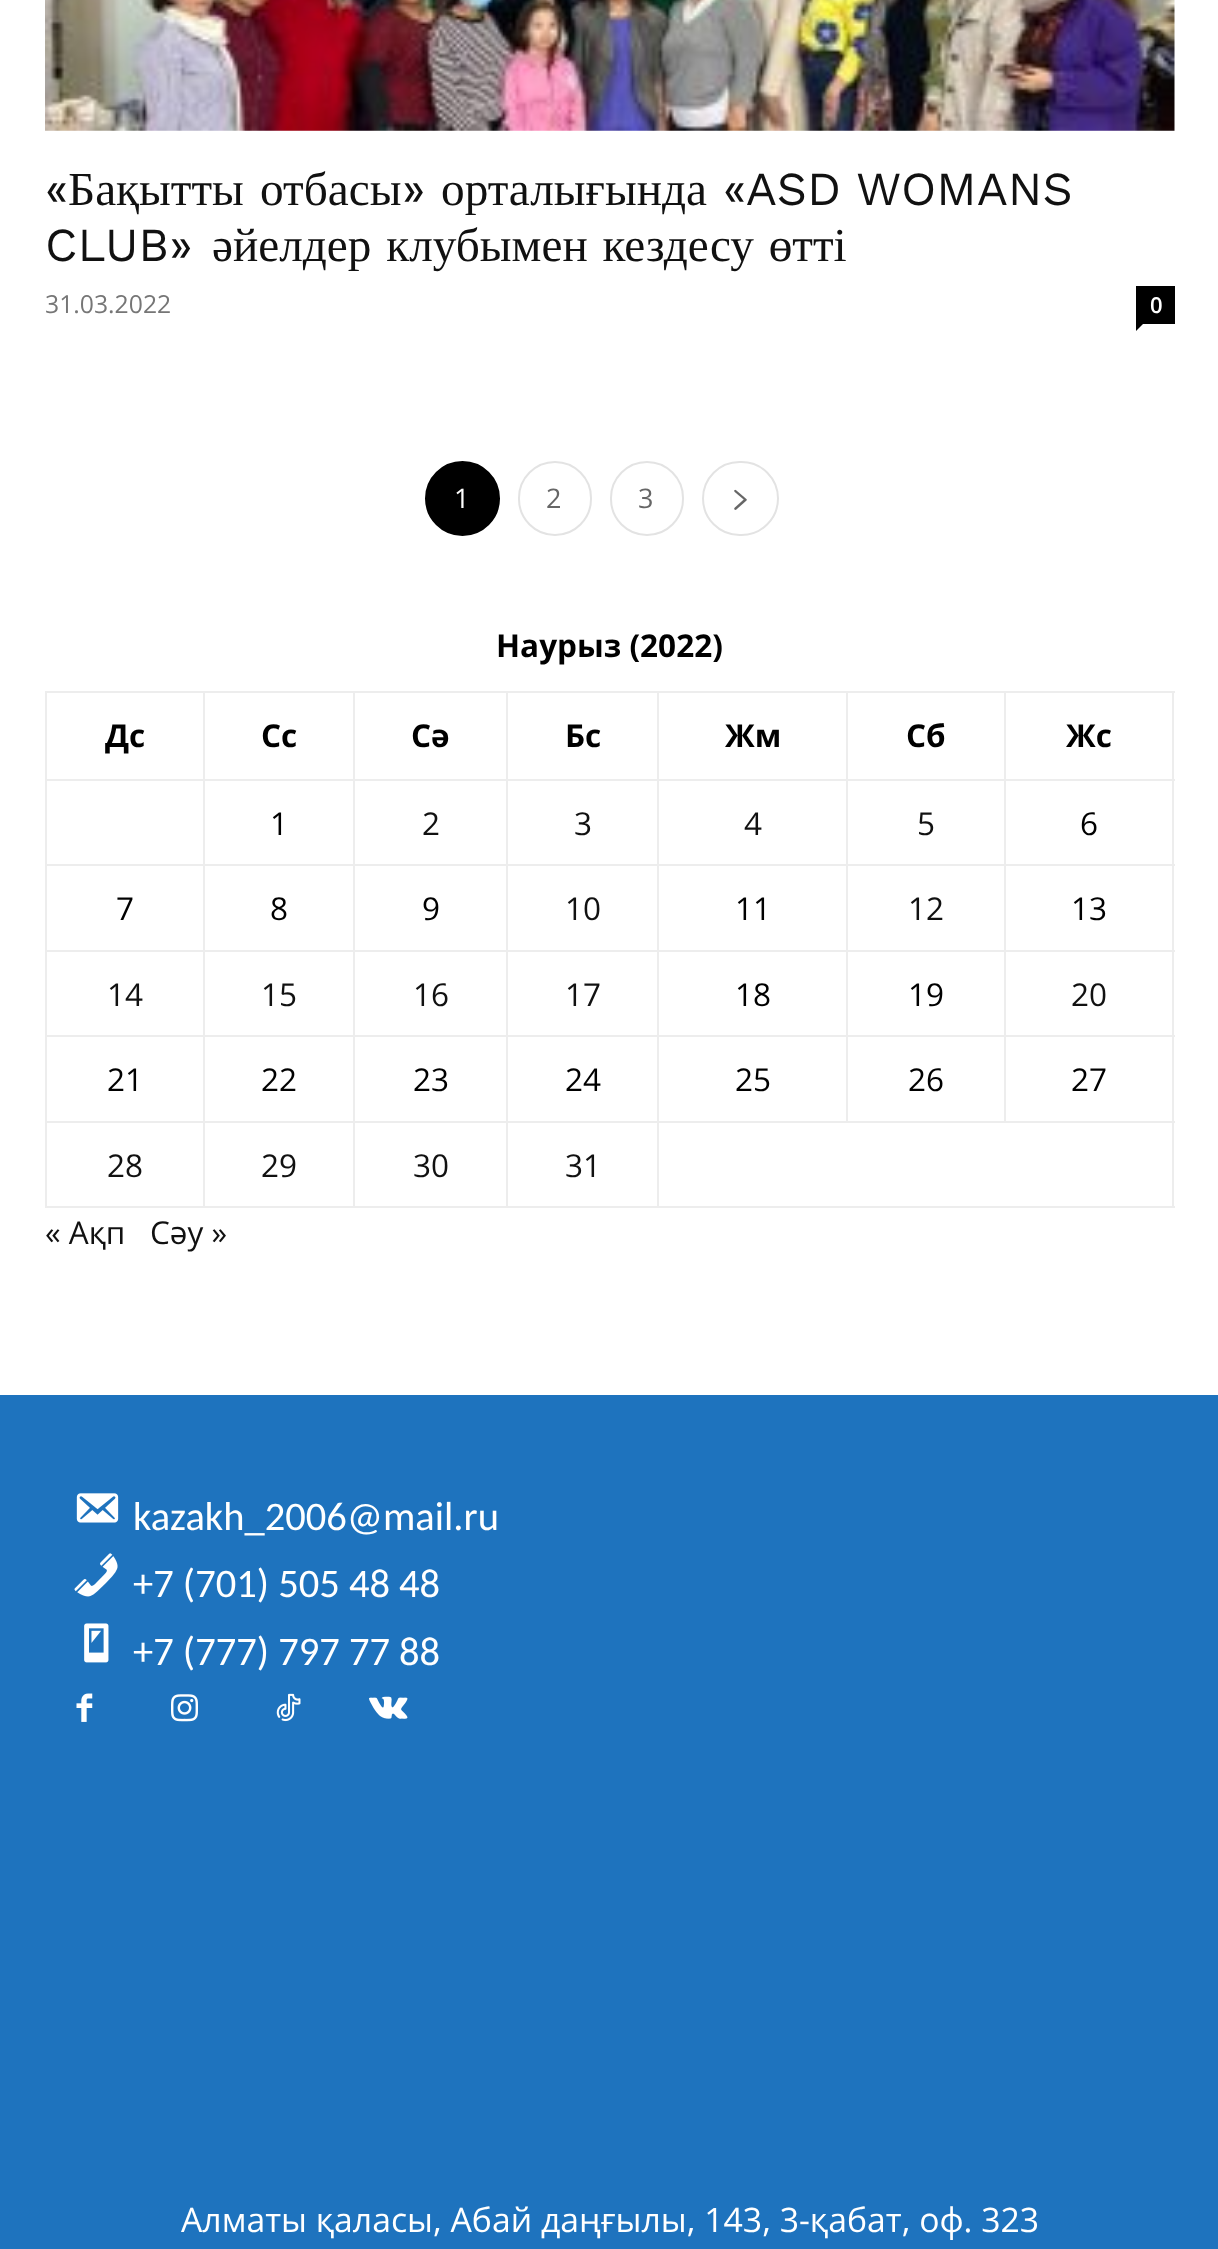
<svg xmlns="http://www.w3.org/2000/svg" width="1218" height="2249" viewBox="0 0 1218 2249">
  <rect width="100%" height="100%" fill="rgb(255,255,255)"/>
  <image x="45" y="0" width="1130" height="131" href="pic1.png"/>
  <text x="45" y="205" font-family="Work Sans" font-size="47.25" fill="rgb(17,17,17)">«</text>
  <g font-family="Liberation Serif" font-size="47.25" fill="rgb(17,17,17)">
    <text x="68" y="205">Бақытты</text>
    <text x="260" y="205">отбасы</text>
  </g>
  <text x="402" y="205" font-family="Work Sans" font-size="47.25" fill="rgb(17,17,17)">»</text>
  <text x="441" y="205" font-family="Liberation Serif" font-size="47.25" fill="rgb(17,17,17)">орталығында</text>
  <g font-family="Work Sans" font-size="47.25" fill="rgb(17,17,17)">
    <text x="723" y="205">«ASD WOMANS</text>
    <text x="45" y="261">CLUB»</text>
  </g>
  <text x="212" y="261" word-spacing="3" font-family="Liberation Serif" font-size="47.25" fill="rgb(17,17,17)">әйелдер клубымен кездесу өтті</text>
  <text x="45" y="313" font-family="Open Sans" font-size="24.75" fill="rgb(118,118,118)">31.03.2022</text>
  <rect x="1136" y="286" width="39" height="38" fill="rgb(0,0,0)"/>
  <text x="1150" y="313" font-family="Open Sans" font-size="22" font-weight="600" fill="rgb(255,255,255)">0</text>
  <path d="M1136 324H1143L1136 331Z" fill="rgb(0,0,0)"/>
  <circle cx="462.5" cy="498.5" r="36.5" fill="rgb(0,0,0)" stroke="rgb(0,0,0)" stroke-width="2"/>
  <text x="454" y="508" font-family="Open Sans" font-size="27" fill="rgb(255,255,255)">1</text>
  <rect x="519" y="462" width="72" height="73" rx="36" fill="none" stroke="rgb(227,227,227)" stroke-width="2"/>
  <text x="546" y="508" font-family="Open Sans" font-size="27" fill="rgb(102,102,102)">2</text>
  <rect x="611" y="462" width="72" height="73" rx="36" fill="none" stroke="rgb(227,227,227)" stroke-width="2"/>
  <text x="638" y="508" font-family="Open Sans" font-size="27" fill="rgb(102,102,102)">3</text>
  <rect x="703" y="462" width="75" height="73" rx="36.5" fill="none" stroke="rgb(227,227,227)" stroke-width="2"/>
  <image x="734" y="489" width="13" height="21" href="pic2.png"/>
  <text x="496" y="657" font-family="Open Sans" font-size="31.5" font-weight="bold" fill="rgb(0,0,0)">Наурыз (2022)</text>
  <rect x="1004" y="691" width="171" height="2" fill="rgb(237,237,237)"/>
  <rect x="1004" y="779" width="171" height="2" fill="rgb(237,237,237)"/>
  <rect x="1004" y="864" width="171" height="2" fill="rgb(237,237,237)"/>
  <rect x="1004" y="950" width="171" height="2" fill="rgb(237,237,237)"/>
  <rect x="1004" y="1035" width="171" height="2" fill="rgb(237,237,237)"/>
  <rect x="657" y="1121" width="518" height="2" fill="rgb(237,237,237)"/>
  <rect x="1004" y="1035" width="2" height="88" fill="rgb(237,237,237)"/>
  <rect x="846" y="1035" width="160" height="2" fill="rgb(237,237,237)"/>
  <rect x="1004" y="950" width="2" height="87" fill="rgb(237,237,237)"/>
  <rect x="846" y="950" width="160" height="2" fill="rgb(237,237,237)"/>
  <rect x="1004" y="864" width="2" height="88" fill="rgb(237,237,237)"/>
  <rect x="846" y="864" width="160" height="2" fill="rgb(237,237,237)"/>
  <rect x="1004" y="779" width="2" height="87" fill="rgb(237,237,237)"/>
  <rect x="846" y="779" width="160" height="2" fill="rgb(237,237,237)"/>
  <rect x="1004" y="691" width="2" height="90" fill="rgb(237,237,237)"/>
  <rect x="846" y="691" width="160" height="2" fill="rgb(237,237,237)"/>
  <rect x="846" y="1035" width="2" height="88" fill="rgb(237,237,237)"/>
  <rect x="657" y="1035" width="191" height="2" fill="rgb(237,237,237)"/>
  <rect x="846" y="950" width="2" height="87" fill="rgb(237,237,237)"/>
  <rect x="657" y="950" width="191" height="2" fill="rgb(237,237,237)"/>
  <rect x="846" y="864" width="2" height="88" fill="rgb(237,237,237)"/>
  <rect x="657" y="864" width="191" height="2" fill="rgb(237,237,237)"/>
  <rect x="846" y="779" width="2" height="87" fill="rgb(237,237,237)"/>
  <rect x="657" y="779" width="191" height="2" fill="rgb(237,237,237)"/>
  <rect x="846" y="691" width="2" height="90" fill="rgb(237,237,237)"/>
  <rect x="657" y="691" width="191" height="2" fill="rgb(237,237,237)"/>
  <rect x="1172" y="1121" width="2" height="87" fill="rgb(237,237,237)"/>
  <rect x="657" y="1206" width="518" height="2" fill="rgb(237,237,237)"/>
  <rect x="657" y="1121" width="2" height="87" fill="rgb(237,237,237)"/>
  <rect x="506" y="1121" width="153" height="2" fill="rgb(237,237,237)"/>
  <rect x="657" y="1035" width="2" height="88" fill="rgb(237,237,237)"/>
  <rect x="506" y="1035" width="153" height="2" fill="rgb(237,237,237)"/>
  <rect x="657" y="950" width="2" height="87" fill="rgb(237,237,237)"/>
  <rect x="506" y="950" width="153" height="2" fill="rgb(237,237,237)"/>
  <rect x="657" y="864" width="2" height="88" fill="rgb(237,237,237)"/>
  <rect x="506" y="864" width="153" height="2" fill="rgb(237,237,237)"/>
  <rect x="657" y="779" width="2" height="87" fill="rgb(237,237,237)"/>
  <rect x="506" y="779" width="153" height="2" fill="rgb(237,237,237)"/>
  <rect x="657" y="691" width="2" height="90" fill="rgb(237,237,237)"/>
  <rect x="506" y="691" width="153" height="2" fill="rgb(237,237,237)"/>
  <rect x="506" y="1206" width="153" height="2" fill="rgb(237,237,237)"/>
  <rect x="506" y="1121" width="2" height="87" fill="rgb(237,237,237)"/>
  <rect x="353" y="1121" width="156" height="2" fill="rgb(237,237,237)"/>
  <rect x="506" y="1035" width="2" height="88" fill="rgb(237,237,237)"/>
  <rect x="353" y="1035" width="156" height="2" fill="rgb(237,237,237)"/>
  <rect x="506" y="950" width="2" height="87" fill="rgb(237,237,237)"/>
  <rect x="353" y="950" width="156" height="2" fill="rgb(237,237,237)"/>
  <rect x="506" y="864" width="2" height="88" fill="rgb(237,237,237)"/>
  <rect x="353" y="864" width="156" height="2" fill="rgb(237,237,237)"/>
  <rect x="506" y="779" width="2" height="87" fill="rgb(237,237,237)"/>
  <rect x="353" y="779" width="156" height="2" fill="rgb(237,237,237)"/>
  <rect x="506" y="691" width="2" height="90" fill="rgb(237,237,237)"/>
  <rect x="353" y="691" width="156" height="2" fill="rgb(237,237,237)"/>
  <rect x="353" y="1206" width="156" height="2" fill="rgb(237,237,237)"/>
  <rect x="353" y="1121" width="2" height="87" fill="rgb(237,237,237)"/>
  <rect x="203" y="1121" width="153" height="2" fill="rgb(237,237,237)"/>
  <rect x="353" y="1035" width="2" height="88" fill="rgb(237,237,237)"/>
  <rect x="203" y="1035" width="153" height="2" fill="rgb(237,237,237)"/>
  <rect x="353" y="950" width="2" height="87" fill="rgb(237,237,237)"/>
  <rect x="203" y="950" width="153" height="2" fill="rgb(237,237,237)"/>
  <rect x="353" y="864" width="2" height="88" fill="rgb(237,237,237)"/>
  <rect x="203" y="864" width="153" height="2" fill="rgb(237,237,237)"/>
  <rect x="353" y="779" width="2" height="87" fill="rgb(237,237,237)"/>
  <rect x="203" y="779" width="153" height="2" fill="rgb(237,237,237)"/>
  <rect x="353" y="691" width="2" height="90" fill="rgb(237,237,237)"/>
  <rect x="203" y="691" width="153" height="2" fill="rgb(237,237,237)"/>
  <rect x="203" y="1206" width="153" height="2" fill="rgb(237,237,237)"/>
  <rect x="203" y="1121" width="2" height="87" fill="rgb(237,237,237)"/>
  <rect x="45" y="1121" width="160" height="2" fill="rgb(237,237,237)"/>
  <rect x="203" y="1035" width="2" height="88" fill="rgb(237,237,237)"/>
  <rect x="45" y="1035" width="160" height="2" fill="rgb(237,237,237)"/>
  <rect x="203" y="950" width="2" height="87" fill="rgb(237,237,237)"/>
  <rect x="45" y="950" width="160" height="2" fill="rgb(237,237,237)"/>
  <rect x="203" y="864" width="2" height="88" fill="rgb(237,237,237)"/>
  <rect x="45" y="864" width="160" height="2" fill="rgb(237,237,237)"/>
  <rect x="203" y="779" width="2" height="87" fill="rgb(237,237,237)"/>
  <rect x="45" y="779" width="160" height="2" fill="rgb(237,237,237)"/>
  <rect x="203" y="691" width="2" height="90" fill="rgb(237,237,237)"/>
  <rect x="45" y="691" width="160" height="2" fill="rgb(237,237,237)"/>
  <rect x="45" y="1206" width="160" height="2" fill="rgb(237,237,237)"/>
  <rect x="45" y="1121" width="2" height="87" fill="rgb(237,237,237)"/>
  <rect x="45" y="1035" width="2" height="88" fill="rgb(237,237,237)"/>
  <rect x="45" y="950" width="2" height="87" fill="rgb(237,237,237)"/>
  <rect x="45" y="864" width="2" height="88" fill="rgb(237,237,237)"/>
  <rect x="45" y="779" width="2" height="87" fill="rgb(237,237,237)"/>
  <rect x="45" y="691" width="2" height="90" fill="rgb(237,237,237)"/>
  <g font-family="Open Sans" font-size="31.5" font-weight="bold" fill="rgb(0,0,0)">
    <text x="105" y="747">Дс</text>
    <text x="261" y="747">Сс</text>
    <text x="411" y="747">Сә</text>
    <text x="565" y="747">Бс</text>
    <text x="725" y="747">Жм</text>
    <text x="906" y="747">Сб</text>
  </g>
  <rect x="1172" y="1035" width="2" height="88" fill="rgb(237,237,237)"/>
  <rect x="1172" y="950" width="2" height="87" fill="rgb(237,237,237)"/>
  <rect x="1172" y="864" width="2" height="88" fill="rgb(237,237,237)"/>
  <rect x="1172" y="779" width="2" height="87" fill="rgb(237,237,237)"/>
  <rect x="1172" y="691" width="2" height="90" fill="rgb(237,237,237)"/>
  <text x="1066" y="747" font-family="Open Sans" font-size="31.5" font-weight="bold" fill="rgb(0,0,0)">Жс</text>
  <text x="270" y="835" font-family="Open Sans" font-size="31.5" fill="rgb(0,0,0)">1</text>
  <g font-family="Open Sans" font-size="31.5" fill="rgb(17,17,17)">
    <text x="422" y="835">2</text>
    <text x="574" y="835">3</text>
    <text x="744" y="835">4</text>
    <text x="917" y="835">5</text>
  </g>
  <g font-family="Open Sans" font-size="31.5" fill="rgb(0,0,0)">
    <text x="1080" y="835">6</text>
    <text x="116" y="920">7</text>
    <text x="270" y="920">8</text>
    <text x="422" y="920">9</text>
  </g>
  <text x="565" y="920" font-family="Open Sans" font-size="31.5" fill="rgb(17,17,17)">10</text>
  <text x="735" y="920" font-family="Open Sans" font-size="31.5" fill="rgb(0,0,0)">11</text>
  <text x="908" y="920" font-family="Open Sans" font-size="31.5" fill="rgb(17,17,17)">12</text>
  <text x="1071" y="920" font-family="Open Sans" font-size="31.5" fill="rgb(0,0,0)">13</text>
  <g font-family="Open Sans" font-size="31.5" fill="rgb(17,17,17)">
    <text x="107" y="1006">14</text>
    <text x="261" y="1006">15</text>
    <text x="413" y="1006">16</text>
    <text x="565" y="1006">17</text>
  </g>
  <g font-family="Open Sans" font-size="31.5" fill="rgb(0,0,0)">
    <text x="735" y="1006">18</text>
    <text x="908" y="1006">19</text>
  </g>
  <text x="1071" y="1006" font-family="Open Sans" font-size="31.5" fill="rgb(17,17,17)">20</text>
  <g font-family="Open Sans" font-size="31.5" fill="rgb(0,0,0)">
    <text x="107" y="1091">21</text>
    <text x="261" y="1091">22</text>
    <text x="413" y="1091">23</text>
    <text x="565" y="1091">24</text>
    <text x="735" y="1091">25</text>
    <text x="908" y="1091">26</text>
    <text x="1071" y="1091">27</text>
  </g>
  <g font-family="Open Sans" font-size="31.5" fill="rgb(17,17,17)">
    <text x="107" y="1177">28</text>
    <text x="261" y="1177">29</text>
    <text x="413" y="1177">30</text>
    <text x="565" y="1177">31</text>
    <text x="45" y="1244">« Ақп</text>
    <text x="150" y="1244">Сәу »</text>
  </g>
  <rect x="0" y="1395" width="1218" height="854" fill="rgb(30,115,190)"/>
  <image x="76" y="1493" width="43" height="30" href="pic3.png"/>
  <text x="133" y="1530" font-family="Carlito" font-size="40.5" fill="rgb(255,255,255)">kazakh_2006@mail.ru</text>
  <image x="74" y="1553" width="44" height="44" href="pic4.png"/>
  <text x="133" y="1597" font-family="Carlito" font-size="40.5" fill="rgb(255,255,255)">+7 (701) 505 48 48</text>
  <image x="84" y="1623" width="25" height="40" href="pic5.png"/>
  <text x="133" y="1665" font-family="Carlito" font-size="40.5" fill="rgb(255,255,255)">+7 (777) 797 77 88</text>
  <image x="76" y="1693" width="17" height="29" href="pic6.png"/>
  <image x="171" y="1694" width="27" height="28" href="pic7.png"/>
  <image x="276" y="1693" width="25" height="29" href="pic8.png"/>
  <image x="369" y="1696" width="39" height="23" href="pic9.png"/>
  <text x="181" y="2232" font-family="Open Sans" font-size="33.75" fill="rgb(255,255,255)">Алматы қаласы, Абай даңғылы, 143, 3-қабат, оф. 323</text>
</svg>
